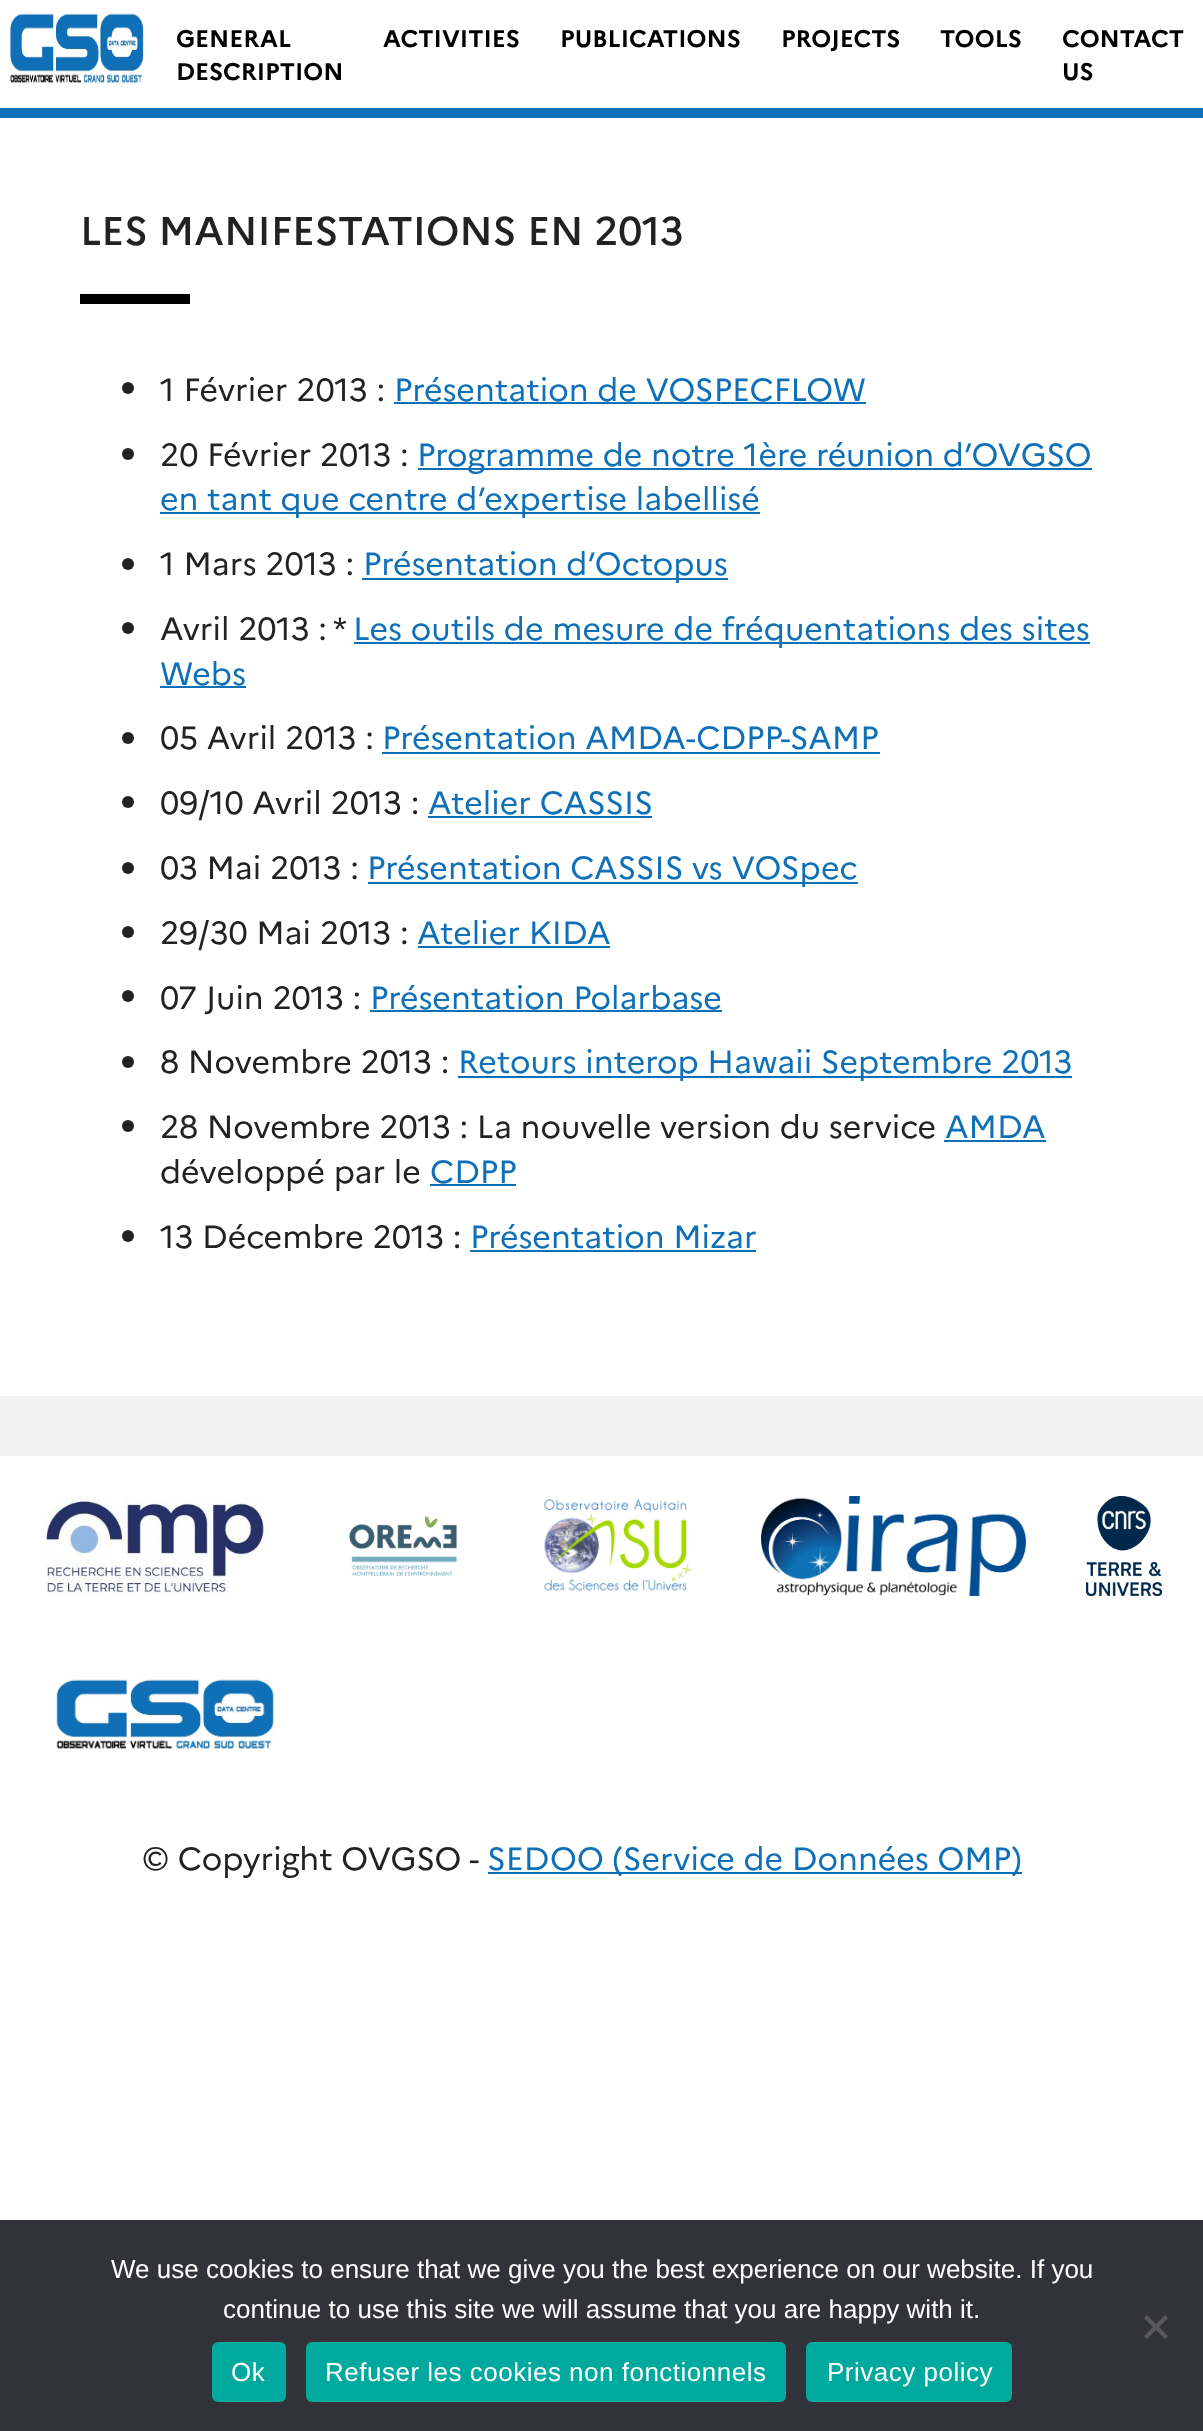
<svg xmlns="http://www.w3.org/2000/svg" width="1203" height="2431" viewBox="0 0 1203 2431">
  <rect width="100%" height="100%" fill="rgb(255,255,255)"/>
  <rect x="0" y="108" width="1203" height="10" fill="rgb(15,112,183)"/>
  <image x="10" y="12" width="134" height="73" href="pic1.png"/>
  <g font-family="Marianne" font-size="24" font-weight="bold" fill="rgb(0,0,0)">
    <text>
      <tspan x="176" y="47">GENERAL</tspan>
      <tspan x="176" y="80">DESCRIPTION</tspan>
    </text>
    <text x="383" y="47">ACTIVITIES</text>
    <text x="560" y="47">PUBLICATIONS</text>
    <text x="781" y="47">PROJECTS</text>
    <text x="940" y="47">TOOLS</text>
    <text>
      <tspan x="1062" y="47">CONTACT</tspan>
      <tspan x="1062" y="80">US</tspan>
    </text>
  </g>
  <text x="80" y="245" font-family="Marianne" font-size="40" font-weight="500" fill="rgb(34,34,34)">LES MANIFESTATIONS EN 2013</text>
  <rect x="80" y="294" width="110" height="10" fill="rgb(0,0,0)"/>
  <circle cx="128" cy="388" r="6" fill="rgb(34,34,34)"/>
  <text x="160" y="401" font-family="Marianne" font-size="32" fill="rgb(34,34,34)">1 Février 2013 :</text>
  <text x="394" y="401" font-family="Marianne" font-size="32" fill="rgb(15,112,183)">Présentation de VOSPECFLOW</text>
  <rect x="394" y="402" width="472" height="2" fill="rgb(15,112,183)"/>
  <circle cx="128" cy="454" r="6" fill="rgb(34,34,34)"/>
  <text x="160" y="466" font-family="Marianne" font-size="32" fill="rgb(34,34,34)">20 Février 2013 :</text>
  <rect x="418" y="468" width="674" height="2" fill="rgb(15,112,183)"/>
  <text x="417" y="466" font-family="Marianne" font-size="32" fill="rgb(15,112,183)">Programme de notre 1ère réunion d’OVGSO</text>
  <rect x="160" y="512" width="600" height="2" fill="rgb(15,112,183)"/>
  <text x="160" y="510" font-family="Marianne" font-size="32" fill="rgb(15,112,183)">en tant que centre d’expertise labellisé</text>
  <circle cx="128" cy="564" r="6" fill="rgb(34,34,34)"/>
  <text x="160" y="575" font-family="Marianne" font-size="32" fill="rgb(34,34,34)">1 Mars 2013 :</text>
  <rect x="362" y="578" width="366" height="2" fill="rgb(15,112,183)"/>
  <text x="363" y="575" font-family="Marianne" font-size="32" fill="rgb(15,112,183)">Présentation d’Octopus</text>
  <circle cx="128" cy="628" r="6" fill="rgb(34,34,34)"/>
  <text x="160" y="640" font-family="Marianne" font-size="32" fill="rgb(34,34,34)">Avril 2013 : *</text>
  <rect x="354" y="642" width="736" height="2" fill="rgb(15,112,183)"/>
  <g font-family="Marianne" font-size="32" fill="rgb(15,112,183)">
    <text x="353" y="640">Les outils de mesure de fréquentations des sites</text>
    <text x="160" y="685">Webs</text>
  </g>
  <rect x="160" y="686" width="86" height="2" fill="rgb(15,112,183)"/>
  <circle cx="128" cy="738" r="6" fill="rgb(34,34,34)"/>
  <text x="160" y="749" font-family="Marianne" font-size="32" fill="rgb(34,34,34)">05 Avril 2013 :</text>
  <text x="382" y="749" font-family="Marianne" font-size="32" fill="rgb(15,112,183)">Présentation AMDA-CDPP-SAMP</text>
  <rect x="382" y="752" width="498" height="2" fill="rgb(15,112,183)"/>
  <circle cx="128" cy="802" r="6" fill="rgb(34,34,34)"/>
  <text x="160" y="814" font-family="Marianne" font-size="32" fill="rgb(34,34,34)">09/10 Avril 2013 :</text>
  <text x="428" y="814" font-family="Marianne" font-size="32" fill="rgb(15,112,183)">Atelier CASSIS</text>
  <rect x="428" y="816" width="224" height="2" fill="rgb(15,112,183)"/>
  <circle cx="128" cy="868" r="6" fill="rgb(34,34,34)"/>
  <text x="160" y="879" font-family="Marianne" font-size="32" fill="rgb(34,34,34)">03 Mai 2013 :</text>
  <rect x="368" y="882" width="490" height="2" fill="rgb(15,112,183)"/>
  <text x="367" y="879" font-family="Marianne" font-size="32" fill="rgb(15,112,183)">Présentation CASSIS vs VOSpec</text>
  <circle cx="128" cy="932" r="6" fill="rgb(34,34,34)"/>
  <text x="160" y="944" font-family="Marianne" font-size="32" fill="rgb(34,34,34)">29/30 Mai 2013 :</text>
  <text x="417" y="944" font-family="Marianne" font-size="32" fill="rgb(15,112,183)">Atelier KIDA</text>
  <rect x="418" y="946" width="192" height="2" fill="rgb(15,112,183)"/>
  <circle cx="128" cy="996" r="6" fill="rgb(34,34,34)"/>
  <text x="160" y="1009" font-family="Marianne" font-size="32" fill="rgb(34,34,34)">07 Juin 2013 :</text>
  <text x="370" y="1009" font-family="Marianne" font-size="32" fill="rgb(15,112,183)">Présentation Polarbase</text>
  <rect x="370" y="1010" width="352" height="2" fill="rgb(15,112,183)"/>
  <circle cx="128" cy="1062" r="6" fill="rgb(34,34,34)"/>
  <text x="160" y="1073" font-family="Marianne" font-size="32" fill="rgb(34,34,34)">8 Novembre 2013 :</text>
  <rect x="458" y="1076" width="614" height="2" fill="rgb(15,112,183)"/>
  <text x="458" y="1073" font-family="Marianne" font-size="32" fill="rgb(15,112,183)">Retours interop Hawaii Septembre 2013</text>
  <circle cx="128" cy="1126" r="6" fill="rgb(34,34,34)"/>
  <text x="160" y="1138" font-family="Marianne" font-size="32" fill="rgb(34,34,34)">28 Novembre 2013 : La nouvelle version du service</text>
  <text x="945" y="1138" font-family="Marianne" font-size="32" fill="rgb(15,112,183)">AMDA</text>
  <rect x="944" y="1140" width="102" height="2" fill="rgb(15,112,183)"/>
  <text x="160" y="1183" font-family="Marianne" font-size="32" fill="rgb(34,34,34)">développé par le</text>
  <text x="430" y="1183" font-family="Marianne" font-size="32" fill="rgb(15,112,183)">CDPP</text>
  <rect x="430" y="1184" width="86" height="2" fill="rgb(15,112,183)"/>
  <circle cx="128" cy="1236" r="6" fill="rgb(34,34,34)"/>
  <text x="160" y="1248" font-family="Marianne" font-size="32" fill="rgb(34,34,34)">13 Décembre 2013 :</text>
  <text x="470" y="1248" font-family="Marianne" font-size="32" fill="rgb(15,112,183)">Présentation Mizar</text>
  <rect x="470" y="1250" width="286" height="2" fill="rgb(15,112,183)"/>
  <rect x="0" y="1396" width="1203" height="60" fill="rgb(242,242,242)"/>
  <image x="40" y="1496" width="226" height="97" href="pic2.png"/>
  <image x="349" y="1515" width="108" height="61" href="pic3.png"/>
  <image x="544" y="1499" width="149" height="92" href="pic4.png"/>
  <image x="761" y="1496" width="265" height="100" href="pic5.png"/>
  <image x="1086" y="1496" width="76" height="100" href="pic6.png"/>
  <image x="56" y="1678" width="219" height="73" href="pic7.png"/>
  <text x="142" y="1870" font-family="Marianne" font-size="32" fill="rgb(34,34,34)">© Copyright OVGSO -</text>
  <rect x="488" y="1872" width="534" height="2" fill="rgb(15,112,183)"/>
  <text x="487" y="1870" font-family="Marianne" font-size="32" fill="rgb(15,112,183)">SEDOO (Service de Données OMP)</text>
  <rect x="0" y="2220" width="1203" height="211" fill="rgb(50,50,58)"/>
  <g font-family="Liberation Sans" font-size="26" fill="rgb(255,255,255)">
    <text x="111" y="2278">We use cookies to ensure that we give you the best experience on our website. If you</text>
    <text x="223" y="2318">continue to use this site we will assume that you are happy with it.</text>
  </g>
  <path d="M1165 2315L1168 2318L1147 2339L1144 2336Z" fill="rgb(89,89,93)"/>
  <path d="M1144 2318L1147 2315L1168 2336L1165 2339Z" fill="rgb(89,89,93)"/>
  <rect x="212" y="2342" width="74" height="60" rx="6" fill="rgb(0,169,157)"/>
  <text x="231" y="2381" font-family="Liberation Sans" font-size="26" letter-spacing="0.5" fill="rgb(255,255,255)">Ok</text>
  <rect x="306" y="2342" width="480" height="60" rx="6" fill="rgb(0,169,157)"/>
  <text x="325" y="2381" font-family="Liberation Sans" font-size="26" letter-spacing="0.5" fill="rgb(255,255,255)">Refuser les cookies non fonctionnels</text>
  <rect x="806" y="2342" width="206" height="60" rx="6" fill="rgb(0,169,157)"/>
  <text x="827" y="2381" font-family="Liberation Sans" font-size="26" letter-spacing="0.5" fill="rgb(255,255,255)">Privacy policy</text>
</svg>
